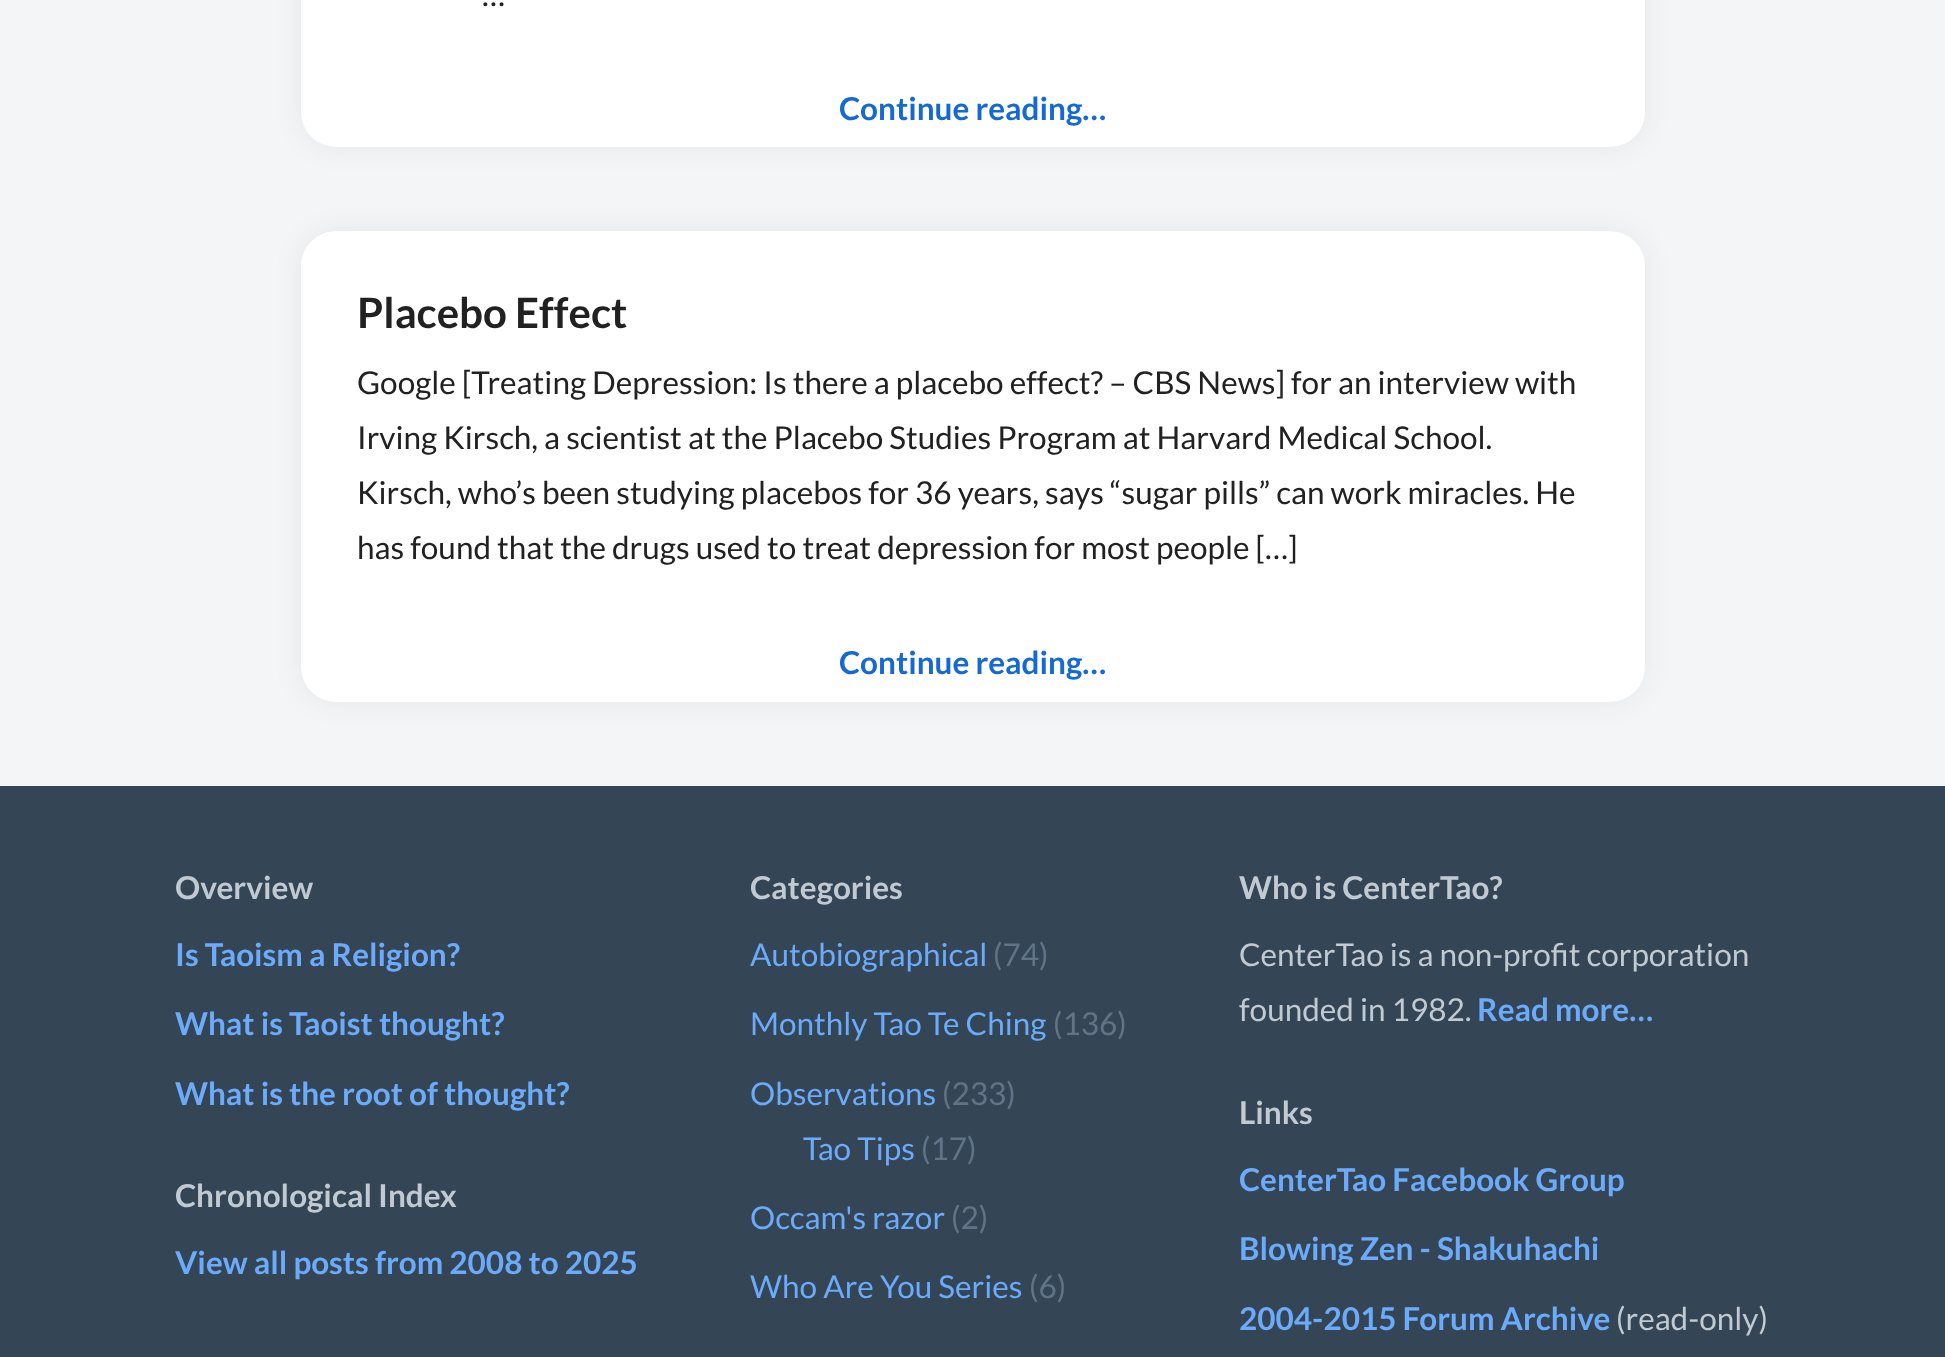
<svg xmlns="http://www.w3.org/2000/svg" width="1945" height="1357" viewBox="0 0 1945 1357">
  <rect width="100%" height="100%" fill="rgb(243,245,247)"/>
  <rect x="301" y="-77" width="1344" height="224" rx="35" fill="rgba(0,0,0,0.06)" filter="blur(14px)"/>
  <rect x="301" y="-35" width="1344" height="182" rx="35" fill="rgb(255,255,255)"/>
  <text x="482" y="6" font-family="Lato" font-size="31.5" fill="rgb(33,33,33)">…</text>
  <text x="839" y="120" font-family="Lato" font-size="31.5" font-weight="bold" fill="rgb(20,105,210)">Continue reading…</text>
  <rect x="301" y="231" width="1344" height="471" rx="35" fill="rgba(0,0,0,0.06)" filter="blur(14px)"/>
  <rect x="301" y="231" width="1344" height="471" rx="35" fill="rgb(255,255,255)"/>
  <text x="357" y="328" font-family="Lato" font-size="42" font-weight="bold" fill="rgb(33,33,33)">Placebo Effect</text>
  <g font-family="Lato" font-size="31.5" fill="rgb(33,33,33)">
    <text>
      <tspan x="357" y="394">Google [Treating Depression: Is there a placebo effect? – CBS News] for an interview with</tspan>
      <tspan x="357" y="449">Irving Kirsch, a scientist at the Placebo Studies Program at Harvard Medical School.</tspan>
      <tspan x="357" y="504">Kirsch, who’s been studying placebos for 36 years, says “sugar pills” can work miracles. He</tspan>
      <tspan x="357" y="559">has found that the drugs used to treat depression for most people […]</tspan>
    </text>
  </g>
  <text x="839" y="674" font-family="Lato" font-size="31.5" font-weight="bold" fill="rgb(20,105,210)">Continue reading…</text>
  <rect x="0" y="786" width="1945" height="571" fill="rgb(52,69,86)"/>
  <text x="175" y="899" font-family="Lato" font-size="31.5" font-weight="bold" fill="rgb(193,201,209)">Overview</text>
  <g font-family="Lato" font-size="31.5" font-weight="bold" fill="rgb(107,171,250)">
    <text x="175" y="966">Is Taoism a Religion?</text>
    <text x="175" y="1035">What is Taoist thought?</text>
    <text x="175" y="1105">What is the root of thought?</text>
  </g>
  <text x="175" y="1207" font-family="Lato" font-size="31.5" font-weight="bold" fill="rgb(193,201,209)">Chronological Index</text>
  <text x="175" y="1274" font-family="Lato" font-size="31.5" font-weight="bold" fill="rgb(107,171,250)">View all posts from 2008 to 2025</text>
  <text x="750" y="899" font-family="Lato" font-size="31.5" font-weight="bold" fill="rgb(193,201,209)">Categories</text>
  <text x="750" y="966" font-family="Lato" font-size="31.5" fill="rgb(107,171,250)">Autobiographical</text>
  <text x="993" y="966" font-family="Lato" font-size="31.5" fill="rgb(97,116,135)">(74)</text>
  <text x="750" y="1035" font-family="Lato" font-size="31.5" fill="rgb(107,171,250)">Monthly Tao Te Ching</text>
  <text x="1053" y="1035" font-family="Lato" font-size="31.5" fill="rgb(97,116,135)">(136)</text>
  <text x="750" y="1105" font-family="Lato" font-size="31.5" fill="rgb(107,171,250)">Observations</text>
  <text x="942" y="1105" font-family="Lato" font-size="31.5" fill="rgb(97,116,135)">(233)</text>
  <text x="803" y="1160" font-family="Lato" font-size="31.5" fill="rgb(107,171,250)">Tao Tips</text>
  <text x="921" y="1160" font-family="Lato" font-size="31.5" fill="rgb(97,116,135)">(17)</text>
  <text x="750" y="1229" font-family="Lato" font-size="31.5" fill="rgb(107,171,250)">Occam's razor</text>
  <text x="951" y="1229" font-family="Lato" font-size="31.5" fill="rgb(97,116,135)">(2)</text>
  <text x="750" y="1298" font-family="Lato" font-size="31.5" fill="rgb(107,171,250)">Who Are You Series</text>
  <text x="1029" y="1298" font-family="Lato" font-size="31.5" fill="rgb(97,116,135)">(6)</text>
  <text x="1239" y="899" font-family="Lato" font-size="31.5" font-weight="bold" fill="rgb(193,201,209)">Who is CenterTao?</text>
  <g font-family="Lato" font-size="31.5" fill="rgb(193,201,209)">
    <text>
      <tspan x="1239" y="966">CenterTao is a non-profit corporation</tspan>
      <tspan x="1239" y="1021">founded in 1982.</tspan>
    </text>
  </g>
  <text x="1477" y="1021" font-family="Lato" font-size="31.5" font-weight="bold" fill="rgb(107,171,250)">Read more…</text>
  <text x="1239" y="1124" font-family="Lato" font-size="31.5" font-weight="bold" fill="rgb(193,201,209)">Links</text>
  <g font-family="Lato" font-size="31.5" font-weight="bold" fill="rgb(107,171,250)">
    <text x="1239" y="1191">CenterTao Facebook Group</text>
    <text x="1239" y="1260">Blowing Zen - Shakuhachi</text>
    <text x="1239" y="1330">2004-2015 Forum Archive</text>
  </g>
  <text x="1616" y="1330" font-family="Lato" font-size="31.5" fill="rgb(193,201,209)">(read-only)</text>
</svg>
